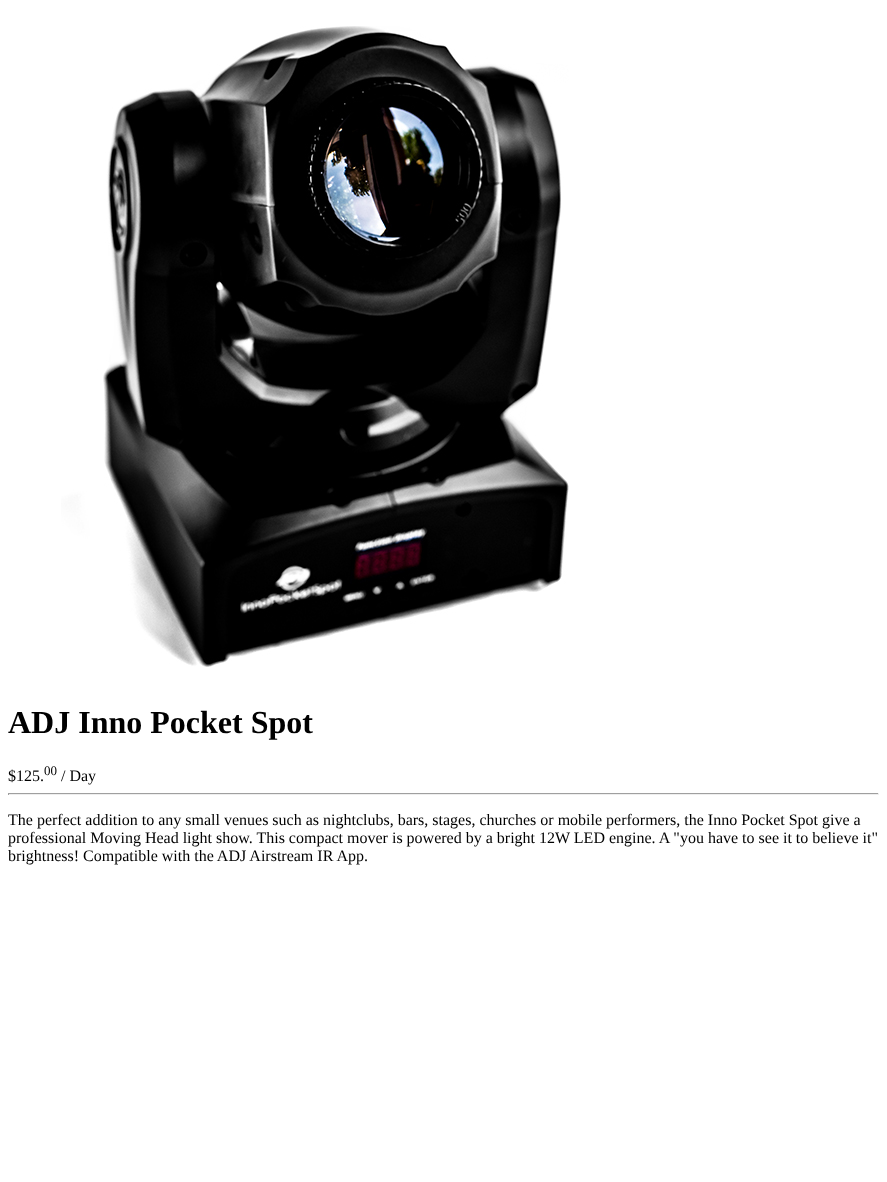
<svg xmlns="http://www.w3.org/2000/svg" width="887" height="1182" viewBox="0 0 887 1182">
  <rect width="100%" height="100%" fill="rgb(255,255,255)"/>
  <image x="61" y="26" width="508" height="641" href="pic1.png"/>
  <text x="8" y="733" font-family="Liberation Serif" font-size="32" font-weight="bold" fill="rgb(0,0,0)">ADJ Inno Pocket Spot</text>
  <text x="8" y="781" font-family="Liberation Serif" font-size="16" fill="rgb(0,0,0)">$125.</text>
  <text x="44" y="775" font-family="Liberation Serif" font-size="13" fill="rgb(0,0,0)">00</text>
  <text x="61" y="781" font-family="Liberation Serif" font-size="16" fill="rgb(0,0,0)">/ Day</text>
  <rect x="8" y="793" width="871" height="1" fill="rgb(159,159,159)"/>
  <rect x="878" y="793" width="1" height="2" fill="rgb(238,238,238)"/>
  <rect x="8" y="794" width="871" height="1" fill="rgb(238,238,238)"/>
  <rect x="8" y="793" width="1" height="2" fill="rgb(159,159,159)"/>
  <g font-family="Liberation Serif" font-size="16" fill="rgb(0,0,0)">
    <text>
      <tspan x="8" y="825">The perfect addition to any small venues such as nightclubs, bars, stages, churches or mobile performers, the Inno Pocket Spot give a</tspan>
      <tspan x="8" y="843">professional Moving Head light show. This compact mover is powered by a bright 12W LED engine. A "you have to see it to believe it"</tspan>
      <tspan x="8" y="861">brightness! Compatible with the ADJ Airstream IR App.</tspan>
    </text>
  </g>
</svg>
